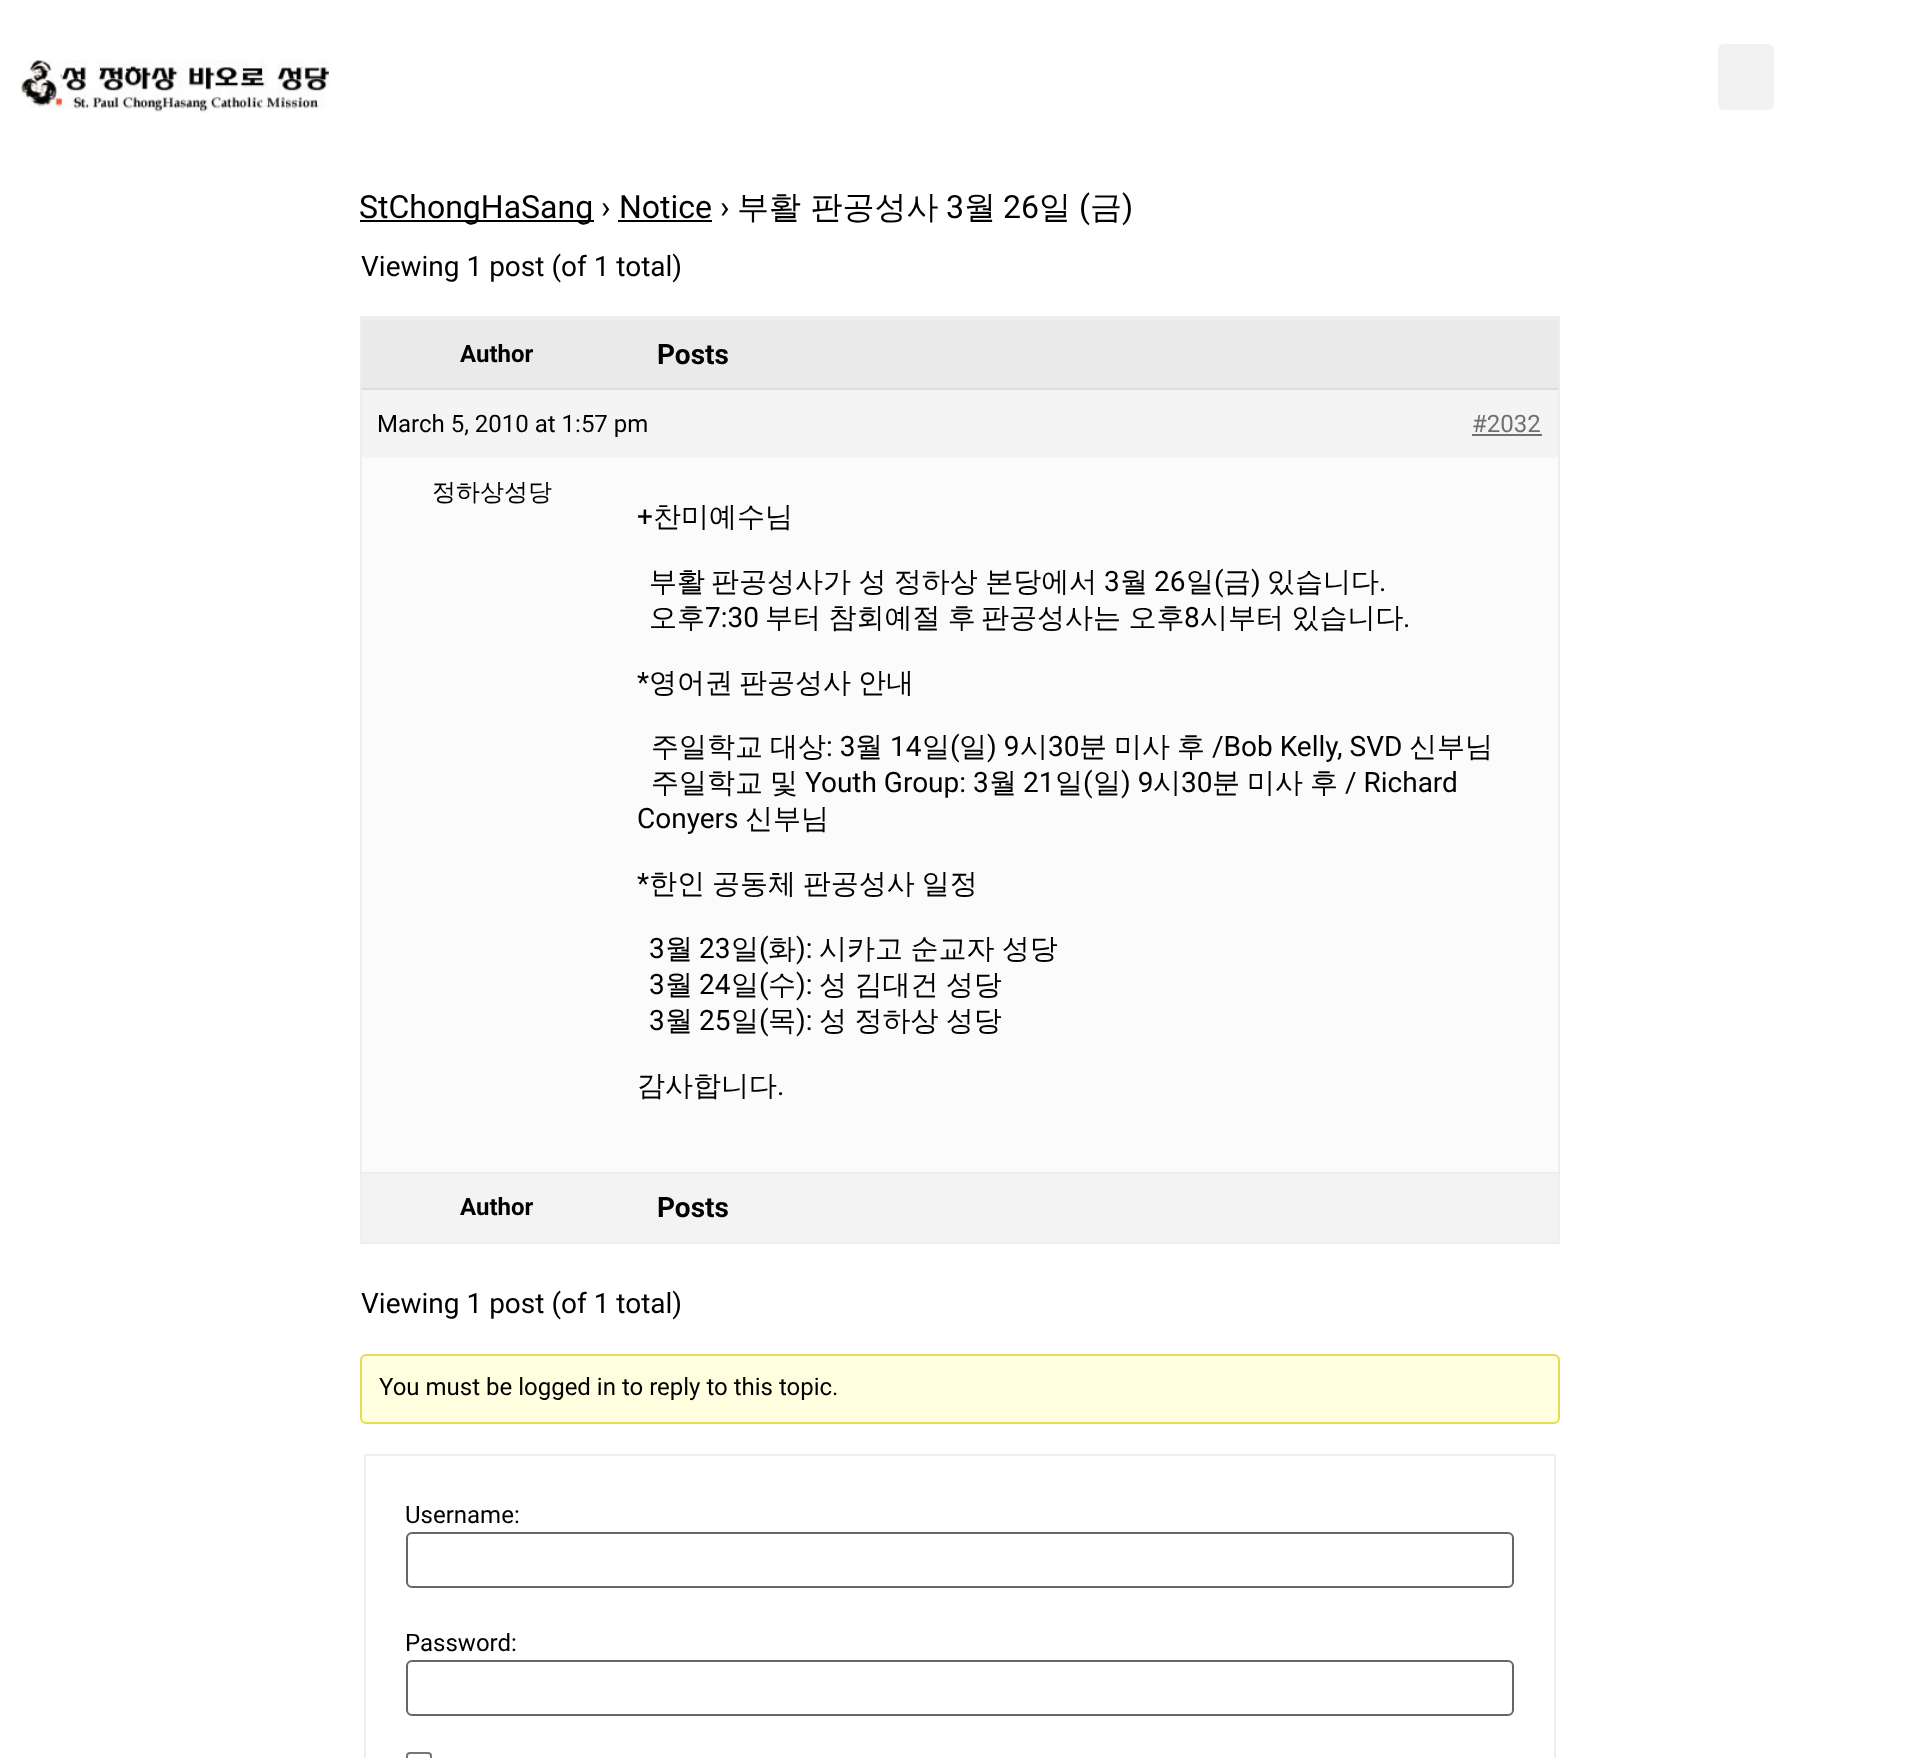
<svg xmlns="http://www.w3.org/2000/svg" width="1918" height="1758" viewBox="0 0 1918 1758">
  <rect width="100%" height="100%" fill="rgb(255,255,255)"/>
  <image x="20" y="60" width="310" height="54" href="pic1.png"/>
  <rect x="1718" y="44" width="56" height="66" rx="6" fill="rgb(242,242,242)"/>
  <rect x="360" y="220" width="234" height="2" fill="rgb(0,0,0)"/>
  <g font-family="Roboto" font-size="32" fill="rgb(0,0,0)">
    <text x="359" y="218">StChongHaSang</text>
    <text x="601" y="218">›</text>
    <text x="619" y="218">Notice</text>
  </g>
  <rect x="618" y="220" width="94" height="2" fill="rgb(0,0,0)"/>
  <text x="720" y="218" font-family="Roboto" font-size="32" fill="rgb(0,0,0)">›</text>
  <text x="737" y="218" font-family="WenQuanYi Zen Hei" font-size="32" font-weight="500" fill="rgb(0,0,0)">부활 판공성사</text>
  <text x="946" y="218" font-family="Roboto" font-size="32" fill="rgb(0,0,0)">3</text>
  <text x="964" y="218" font-family="WenQuanYi Zen Hei" font-size="32" font-weight="500" fill="rgb(0,0,0)">월</text>
  <text x="1003" y="218" font-family="Roboto" font-size="32" fill="rgb(0,0,0)">26</text>
  <text x="1039" y="218" font-family="WenQuanYi Zen Hei" font-size="32" font-weight="500" fill="rgb(0,0,0)">일</text>
  <text x="1079" y="218" font-family="Roboto" font-size="32" fill="rgb(0,0,0)">(</text>
  <text x="1090" y="218" font-family="WenQuanYi Zen Hei" font-size="32" font-weight="500" fill="rgb(0,0,0)">금</text>
  <text x="1122" y="218" font-family="Roboto" font-size="32" fill="rgb(0,0,0)">)</text>
  <text x="361" y="276" font-family="Roboto" font-size="28" fill="rgb(0,0,0)">Viewing 1 post (of 1 total)</text>
  <rect x="361" y="317" width="1198" height="926" fill="none" stroke="rgb(238,238,238)" stroke-width="2"/>
  <rect x="362" y="320" width="1196" height="68" fill="rgb(234,234,234)"/>
  <rect x="362" y="318" width="1196" height="2" fill="rgb(238,238,238)"/>
  <text x="460" y="362" font-family="Roboto" font-size="24" font-weight="bold" fill="rgb(0,0,0)">Author</text>
  <text x="657" y="364" font-family="Roboto" font-size="28" font-weight="bold" fill="rgb(0,0,0)">Posts</text>
  <rect x="362" y="390" width="1196" height="68" fill="rgb(244,244,244)"/>
  <rect x="362" y="388" width="1196" height="2" fill="rgb(221,221,221)"/>
  <text x="377" y="432" font-family="Roboto" font-size="24" fill="rgb(0,0,0)">March 5, 2010 at 1:57 pm</text>
  <text x="1472" y="432" font-family="Roboto" font-size="24" fill="rgb(112,112,112)">#2032</text>
  <rect x="1472" y="434" width="70" height="2" fill="rgb(112,112,112)"/>
  <rect x="362" y="458" width="1196" height="714" fill="rgb(251,251,251)"/>
  <text x="432" y="500" font-family="WenQuanYi Zen Hei" font-size="24" font-weight="500" fill="rgb(0,0,0)">정하상성당</text>
  <text x="637" y="526" font-family="Roboto" font-size="28" fill="rgb(0,0,0)">+</text>
  <g font-family="WenQuanYi Zen Hei" font-size="28" font-weight="500" fill="rgb(0,0,0)">
    <text x="653" y="526">찬미예수님</text>
    <text x="649" y="591">부활</text>
    <text x="711" y="591" word-spacing="-1">판공성사가 성 정하상 본당에서</text>
  </g>
  <text x="1104" y="591" font-family="Roboto" font-size="28" fill="rgb(0,0,0)">3</text>
  <text x="1120" y="591" font-family="WenQuanYi Zen Hei" font-size="28" font-weight="500" fill="rgb(0,0,0)">월</text>
  <text x="1154" y="591" font-family="Roboto" font-size="28" fill="rgb(0,0,0)">26</text>
  <text x="1186" y="591" font-family="WenQuanYi Zen Hei" font-size="28" font-weight="500" fill="rgb(0,0,0)">일</text>
  <text x="1214" y="591" font-family="Roboto" font-size="28" fill="rgb(0,0,0)">(</text>
  <text x="1223" y="591" font-family="WenQuanYi Zen Hei" font-size="28" font-weight="500" fill="rgb(0,0,0)">금</text>
  <text x="1251" y="591" font-family="Roboto" font-size="28" fill="rgb(0,0,0)">)</text>
  <text x="1267" y="591" font-family="WenQuanYi Zen Hei" font-size="28" font-weight="500" fill="rgb(0,0,0)">있습니다</text>
  <text x="1379" y="591" font-family="Roboto" font-size="28" fill="rgb(0,0,0)">.</text>
  <text x="649" y="627" font-family="WenQuanYi Zen Hei" font-size="28" font-weight="500" fill="rgb(0,0,0)">오후</text>
  <text x="705" y="627" font-family="Roboto" font-size="28" fill="rgb(0,0,0)">7:30</text>
  <g font-family="WenQuanYi Zen Hei" font-size="28" font-weight="500" fill="rgb(0,0,0)">
    <text x="765" y="627" word-spacing="-1">부터 참회예절 후</text>
    <text x="981" y="627" word-spacing="-1">판공성사는 오후</text>
  </g>
  <text x="1184" y="627" font-family="Roboto" font-size="28" fill="rgb(0,0,0)">8</text>
  <text x="1200" y="627" word-spacing="-1" font-family="WenQuanYi Zen Hei" font-size="28" font-weight="500" fill="rgb(0,0,0)">시부터 있습니다</text>
  <g font-family="Roboto" font-size="28" fill="rgb(0,0,0)">
    <text x="1403" y="627">.</text>
    <text x="637" y="692">*</text>
  </g>
  <g font-family="WenQuanYi Zen Hei" font-size="28" font-weight="500" fill="rgb(0,0,0)">
    <text x="649" y="692">영어권</text>
    <text x="739" y="692" word-spacing="-1.5">판공성사 안내</text>
    <text x="651" y="756">주일학교</text>
    <text x="770" y="756">대상</text>
  </g>
  <text x="826" y="756" font-family="Roboto" font-size="28" fill="rgb(0,0,0)">: 3</text>
  <text x="855" y="756" font-family="WenQuanYi Zen Hei" font-size="28" font-weight="500" fill="rgb(0,0,0)">월</text>
  <text x="890" y="756" font-family="Roboto" font-size="28" fill="rgb(0,0,0)">14</text>
  <text x="922" y="756" font-family="WenQuanYi Zen Hei" font-size="28" font-weight="500" fill="rgb(0,0,0)">일</text>
  <text x="950" y="756" font-family="Roboto" font-size="28" fill="rgb(0,0,0)">(</text>
  <text x="959" y="756" font-family="WenQuanYi Zen Hei" font-size="28" font-weight="500" fill="rgb(0,0,0)">일</text>
  <text x="987" y="756" font-family="Roboto" font-size="28" fill="rgb(0,0,0)">) 9</text>
  <text x="1020" y="756" font-family="WenQuanYi Zen Hei" font-size="28" font-weight="500" fill="rgb(0,0,0)">시</text>
  <text x="1048" y="756" font-family="Roboto" font-size="28" fill="rgb(0,0,0)">30</text>
  <g font-family="WenQuanYi Zen Hei" font-size="28" font-weight="500" fill="rgb(0,0,0)">
    <text x="1079" y="756">분</text>
    <text x="1114" y="756">미사</text>
    <text x="1177" y="756">후</text>
  </g>
  <text x="1212" y="756" font-family="Roboto" font-size="28" fill="rgb(0,0,0)">/Bob Kelly, SVD</text>
  <g font-family="WenQuanYi Zen Hei" font-size="28" font-weight="500" fill="rgb(0,0,0)">
    <text x="1409" y="756">신부님</text>
    <text x="651" y="792">주일학교</text>
    <text x="770" y="792">및</text>
  </g>
  <text x="805" y="792" font-family="Roboto" font-size="28" fill="rgb(0,0,0)">Youth Group: 3</text>
  <text x="989" y="792" font-family="WenQuanYi Zen Hei" font-size="28" font-weight="500" fill="rgb(0,0,0)">월</text>
  <text x="1023" y="792" font-family="Roboto" font-size="28" fill="rgb(0,0,0)">21</text>
  <text x="1055" y="792" font-family="WenQuanYi Zen Hei" font-size="28" font-weight="500" fill="rgb(0,0,0)">일</text>
  <text x="1083" y="792" font-family="Roboto" font-size="28" fill="rgb(0,0,0)">(</text>
  <text x="1093" y="792" font-family="WenQuanYi Zen Hei" font-size="28" font-weight="500" fill="rgb(0,0,0)">일</text>
  <text x="1121" y="792" font-family="Roboto" font-size="28" fill="rgb(0,0,0)">) 9</text>
  <text x="1153" y="792" font-family="WenQuanYi Zen Hei" font-size="28" font-weight="500" fill="rgb(0,0,0)">시</text>
  <text x="1181" y="792" font-family="Roboto" font-size="28" fill="rgb(0,0,0)">30</text>
  <g font-family="WenQuanYi Zen Hei" font-size="28" font-weight="500" fill="rgb(0,0,0)">
    <text x="1212" y="792">분</text>
    <text x="1247" y="792">미사</text>
    <text x="1310" y="792">후</text>
  </g>
  <g font-family="Roboto" font-size="28" fill="rgb(0,0,0)">
    <text x="1345" y="792">/ Richard</text>
    <text x="637" y="828">Conyers</text>
  </g>
  <text x="745" y="828" font-family="WenQuanYi Zen Hei" font-size="28" font-weight="500" fill="rgb(0,0,0)">신부님</text>
  <text x="637" y="893" font-family="Roboto" font-size="28" fill="rgb(0,0,0)">*</text>
  <text x="649" y="893" word-spacing="-1.5" font-family="WenQuanYi Zen Hei" font-size="28" font-weight="500" fill="rgb(0,0,0)">한인 공동체 판공성사 일정</text>
  <text x="649" y="958" font-family="Roboto" font-size="28" fill="rgb(0,0,0)">3</text>
  <text x="665" y="958" font-family="WenQuanYi Zen Hei" font-size="28" font-weight="500" fill="rgb(0,0,0)">월</text>
  <text x="699" y="958" font-family="Roboto" font-size="28" fill="rgb(0,0,0)">23</text>
  <text x="731" y="958" font-family="WenQuanYi Zen Hei" font-size="28" font-weight="500" fill="rgb(0,0,0)">일</text>
  <text x="759" y="958" font-family="Roboto" font-size="28" fill="rgb(0,0,0)">(</text>
  <text x="768" y="958" font-family="WenQuanYi Zen Hei" font-size="28" font-weight="500" fill="rgb(0,0,0)">화</text>
  <text x="796" y="958" font-family="Roboto" font-size="28" fill="rgb(0,0,0)">):</text>
  <text x="819" y="958" word-spacing="-1" font-family="WenQuanYi Zen Hei" font-size="28" font-weight="500" fill="rgb(0,0,0)">시카고 순교자 성당</text>
  <text x="649" y="994" font-family="Roboto" font-size="28" fill="rgb(0,0,0)">3</text>
  <text x="665" y="994" font-family="WenQuanYi Zen Hei" font-size="28" font-weight="500" fill="rgb(0,0,0)">월</text>
  <text x="699" y="994" font-family="Roboto" font-size="28" fill="rgb(0,0,0)">24</text>
  <text x="731" y="994" font-family="WenQuanYi Zen Hei" font-size="28" font-weight="500" fill="rgb(0,0,0)">일</text>
  <text x="759" y="994" font-family="Roboto" font-size="28" fill="rgb(0,0,0)">(</text>
  <text x="768" y="994" font-family="WenQuanYi Zen Hei" font-size="28" font-weight="500" fill="rgb(0,0,0)">수</text>
  <text x="796" y="994" font-family="Roboto" font-size="28" fill="rgb(0,0,0)">):</text>
  <text x="819" y="994" word-spacing="-1" font-family="WenQuanYi Zen Hei" font-size="28" font-weight="500" fill="rgb(0,0,0)">성 김대건 성당</text>
  <text x="649" y="1030" font-family="Roboto" font-size="28" fill="rgb(0,0,0)">3</text>
  <text x="665" y="1030" font-family="WenQuanYi Zen Hei" font-size="28" font-weight="500" fill="rgb(0,0,0)">월</text>
  <text x="699" y="1030" font-family="Roboto" font-size="28" fill="rgb(0,0,0)">25</text>
  <text x="731" y="1030" font-family="WenQuanYi Zen Hei" font-size="28" font-weight="500" fill="rgb(0,0,0)">일</text>
  <text x="759" y="1030" font-family="Roboto" font-size="28" fill="rgb(0,0,0)">(</text>
  <text x="768" y="1030" font-family="WenQuanYi Zen Hei" font-size="28" font-weight="500" fill="rgb(0,0,0)">목</text>
  <text x="796" y="1030" font-family="Roboto" font-size="28" fill="rgb(0,0,0)">):</text>
  <g font-family="WenQuanYi Zen Hei" font-size="28" font-weight="500" fill="rgb(0,0,0)">
    <text x="819" y="1030" word-spacing="-1">성 정하상 성당</text>
    <text x="637" y="1095">감사합니다</text>
  </g>
  <text x="777" y="1095" font-family="Roboto" font-size="28" fill="rgb(0,0,0)">.</text>
  <rect x="362" y="1174" width="1196" height="68" fill="rgb(243,243,243)"/>
  <rect x="362" y="1172" width="1196" height="2" fill="rgb(238,238,238)"/>
  <text x="460" y="1215" font-family="Roboto" font-size="24" font-weight="bold" fill="rgb(0,0,0)">Author</text>
  <text x="657" y="1217" font-family="Roboto" font-size="28" font-weight="bold" fill="rgb(0,0,0)">Posts</text>
  <text x="361" y="1313" font-family="Roboto" font-size="28" fill="rgb(0,0,0)">Viewing 1 post (of 1 total)</text>
  <rect x="361" y="1355" width="1198" height="68" rx="5" fill="rgb(255,255,224)" stroke="rgb(230,219,85)" stroke-width="2"/>
  <text x="379" y="1395" font-family="Roboto" font-size="24" fill="rgb(0,0,0)">You must be logged in to reply to this topic.</text>
  <rect x="365" y="1455" width="1190" height="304" fill="none" stroke="rgb(238,238,238)" stroke-width="2"/>
  <text x="405" y="1523" font-family="Roboto" font-size="24" fill="rgb(0,0,0)">Username:</text>
  <rect x="407" y="1533" width="1106" height="54" rx="5" fill="none" stroke="rgb(102,102,102)" stroke-width="2"/>
  <text x="405" y="1651" font-family="Roboto" font-size="24" fill="rgb(0,0,0)">Password:</text>
  <rect x="407" y="1661" width="1106" height="54" rx="5" fill="none" stroke="rgb(102,102,102)" stroke-width="2"/>
  <rect x="407" y="1753" width="24" height="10" rx="3" fill="none" stroke="rgb(118,118,118)" stroke-width="2"/>
</svg>
